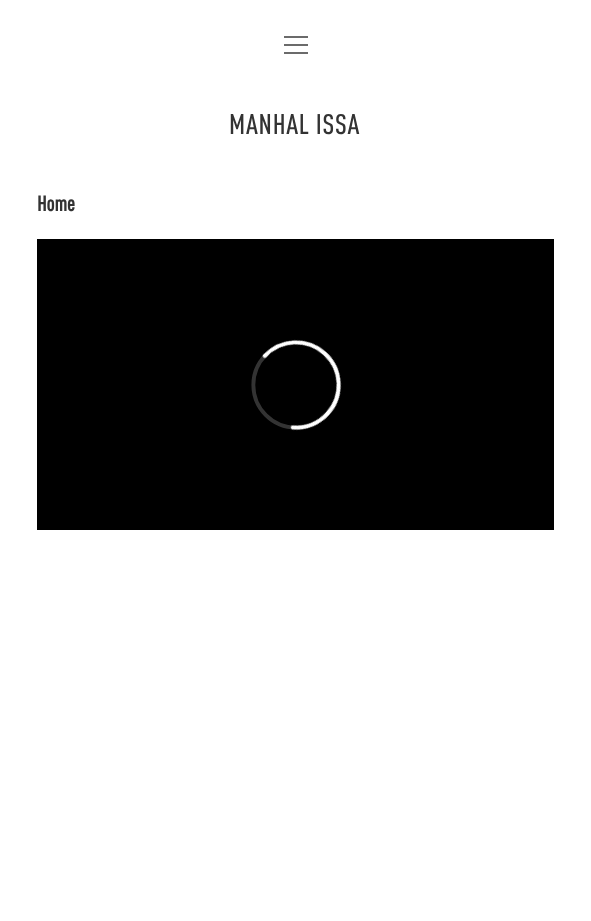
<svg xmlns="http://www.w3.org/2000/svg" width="591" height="921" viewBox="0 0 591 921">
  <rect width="100%" height="100%" fill="rgb(255,255,255)"/>
  <rect x="284" y="36" width="24" height="2" fill="rgb(107,107,107)"/>
  <rect x="284" y="44" width="24" height="2" fill="rgb(107,107,107)"/>
  <rect x="284" y="52" width="24" height="2" fill="rgb(107,107,107)"/>
  <text x="229" y="134" font-family="DIN" font-size="28" font-weight="500" letter-spacing="0.75" fill="rgb(51,51,51)">MANHAL ISSA</text>
  <text x="37" y="211" font-family="DIN" font-size="21" font-weight="bold" fill="rgb(51,51,51)">Home</text>
  <image x="37" y="239" width="517" height="291" href="pic1.png"/>
</svg>
